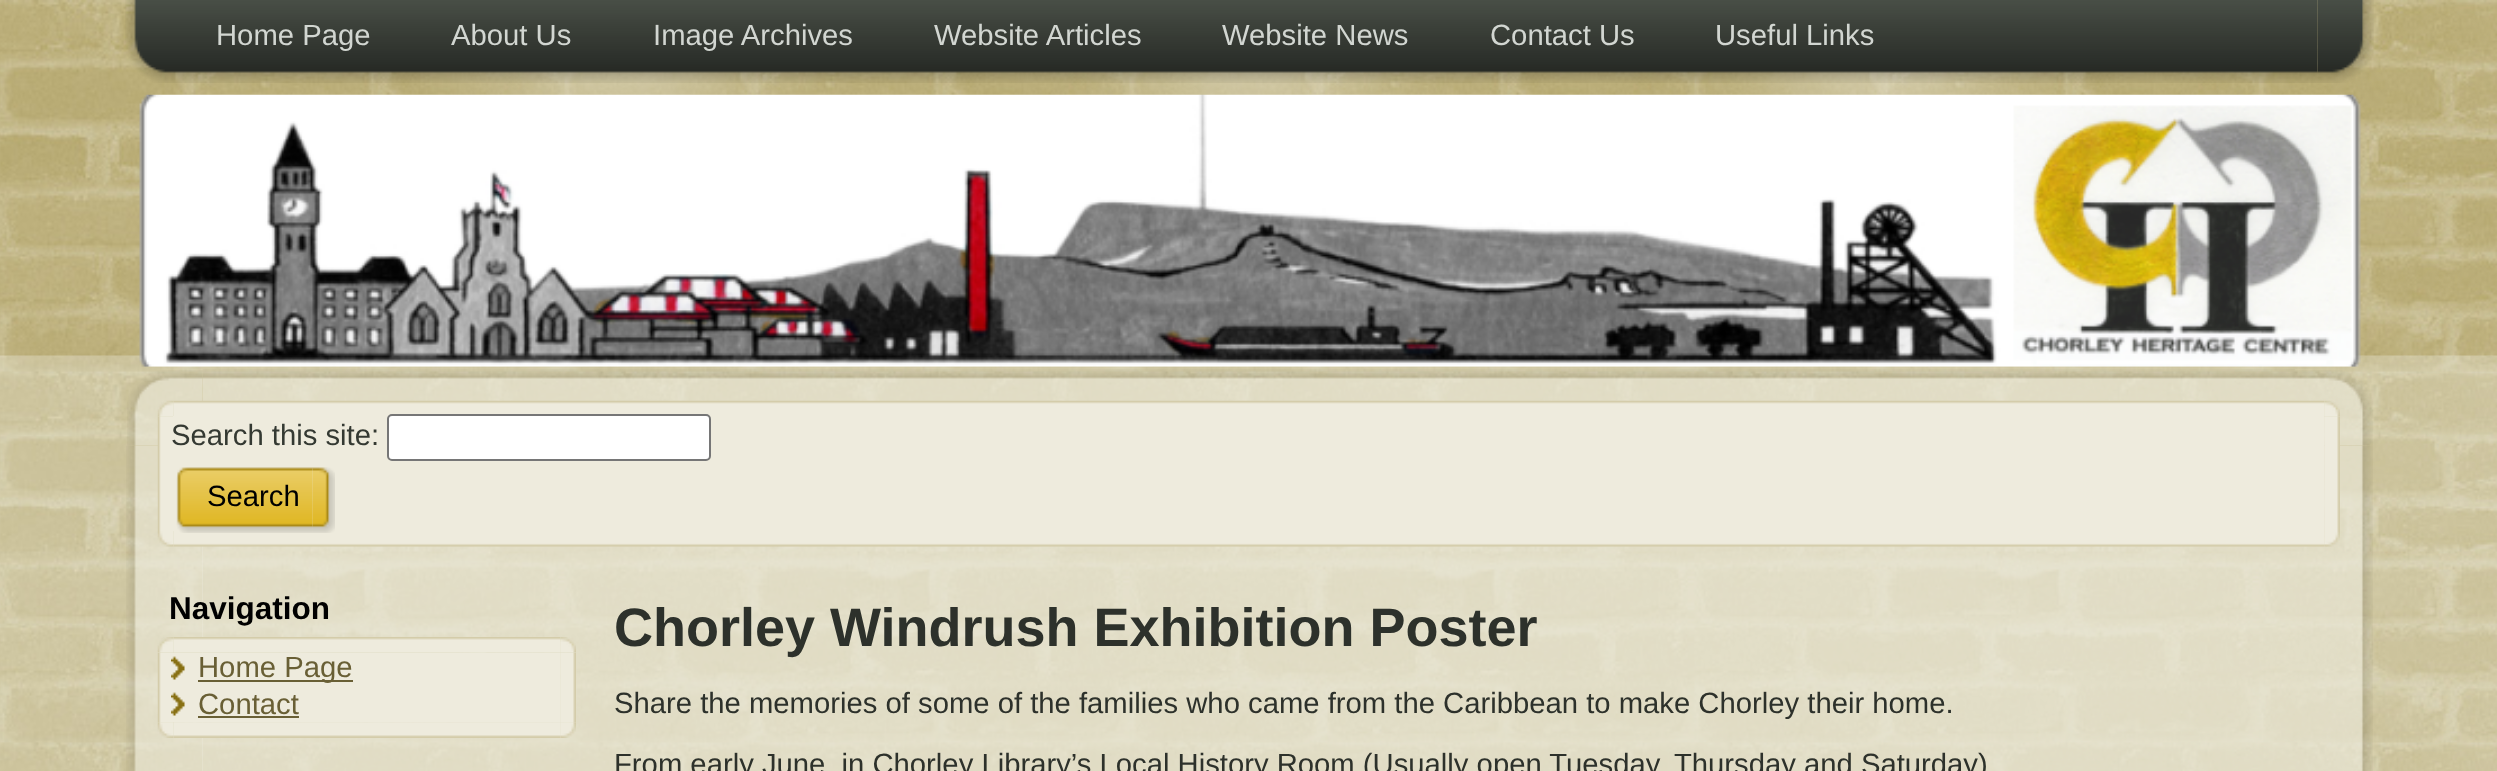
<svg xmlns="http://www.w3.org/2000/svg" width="2497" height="771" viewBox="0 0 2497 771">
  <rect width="100%" height="100%" fill="rgb(255,255,255)"/>
  <image x="0" y="355" width="2497" height="416" href="pic1.png"/>
  <image x="0" y="0" width="2497" height="356" href="pic2.png"/>
  <image x="420" y="71" width="1663" height="24" href="pic30.png"/>
  <image x="125" y="0" width="2193" height="83" href="pic3.png"/>
  <image x="2317" y="0" width="57" height="83" href="pic4.png"/>
  <g font-family="Liberation Sans" font-size="29.25" fill="rgb(210,214,209)">
    <text x="216" y="45">Home Page</text>
    <text x="451" y="45">About Us</text>
    <text x="653" y="45">Image Archives</text>
    <text x="934" y="45">Website Articles</text>
    <text x="1222" y="45">Website News</text>
    <text x="1490" y="45">Contact Us</text>
    <text x="1715" y="45">Useful Links</text>
  </g>
  <image x="139" y="94" width="2222" height="273" href="pic5.png"/>
  <image x="127" y="370" width="76" height="76" href="pic6.png"/>
  <image x="202" y="369" width="2093" height="32" href="pic7.png"/>
  <image x="2295" y="370" width="78" height="76" href="pic8.png"/>
  <image x="126" y="445" width="77" height="326" href="pic9.png"/>
  <image x="157" y="400" width="17" height="17" href="pic10.png"/>
  <image x="173" y="400" width="2151" height="16" href="pic11.png"/>
  <image x="2324" y="400" width="16" height="17" href="pic12.png"/>
  <image x="157" y="416" width="16" height="115" href="pic13.png"/>
  <image x="2295" y="445" width="78" height="326" href="pic29.png"/>
  <rect x="173" y="416" width="2151" height="115" fill="rgb(238,235,221)"/>
  <image x="2324" y="416" width="16" height="115" href="pic14.png"/>
  <text x="171" y="445" font-family="Liberation Sans" font-size="29.25" fill="rgb(52,57,50)">Search this site:</text>
  <rect x="388" y="415" width="322" height="45" rx="4" fill="rgb(255,255,255)" stroke="rgb(118,118,118)" stroke-width="2"/>
  <image x="157" y="531" width="17" height="16" href="pic17.png"/>
  <rect x="202" y="546" width="2093" height="225" fill="rgba(238,237,223,0.6)"/>
  <image x="173" y="531" width="2151" height="16" href="pic18.png"/>
  <image x="176" y="467" width="137" height="66" href="pic15.png"/>
  <image x="312" y="467" width="23" height="66" href="pic16.png"/>
  <text x="207" y="506" font-family="Liberation Sans" font-size="29.25" fill="rgb(0,0,0)">Search</text>
  <image x="2324" y="531" width="16" height="16" href="pic19.png"/>
  <text x="169" y="619" font-family="Liberation Sans" font-size="31.5" font-weight="bold" fill="rgb(0,0,0)">Navigation</text>
  <image x="157" y="637" width="17" height="16" href="pic20.png"/>
  <image x="173" y="637" width="387" height="16" href="pic21.png"/>
  <image x="560" y="637" width="16" height="16" href="pic22.png"/>
  <image x="157" y="653" width="16" height="69" href="pic23.png"/>
  <rect x="173" y="653" width="387" height="69" fill="rgb(238,235,221)"/>
  <image x="560" y="653" width="16" height="69" href="pic24.png"/>
  <image x="171" y="656" width="14" height="24" href="pic25.png"/>
  <rect x="198" y="680" width="155" height="2" fill="rgb(105,95,53)"/>
  <text x="198" y="677" font-family="Liberation Sans" font-size="29.25" fill="rgb(105,95,53)">Home Page</text>
  <image x="171" y="692" width="14" height="24" href="pic25.png"/>
  <text x="198" y="714" font-family="Liberation Sans" font-size="29.25" fill="rgb(105,95,53)">Contact</text>
  <rect x="198" y="716" width="101" height="2" fill="rgb(105,95,53)"/>
  <image x="157" y="722" width="17" height="16" href="pic26.png"/>
  <image x="173" y="722" width="387" height="16" href="pic27.png"/>
  <image x="560" y="722" width="16" height="16" href="pic28.png"/>
  <text x="614" y="646" font-family="Liberation Sans" font-size="54" font-weight="bold" fill="rgb(45,49,43)">Chorley Windrush Exhibition Poster</text>
  <g font-family="Liberation Sans" font-size="29.25" fill="rgb(45,49,43)">
    <text x="614" y="713">Share the memories of some of the families who came from the Caribbean to make Chorley their home.</text>
    <text x="614" y="774">From early June, in Chorley Library’s Local History Room (Usually open Tuesday, Thursday and Saturday)</text>
  </g>
</svg>
